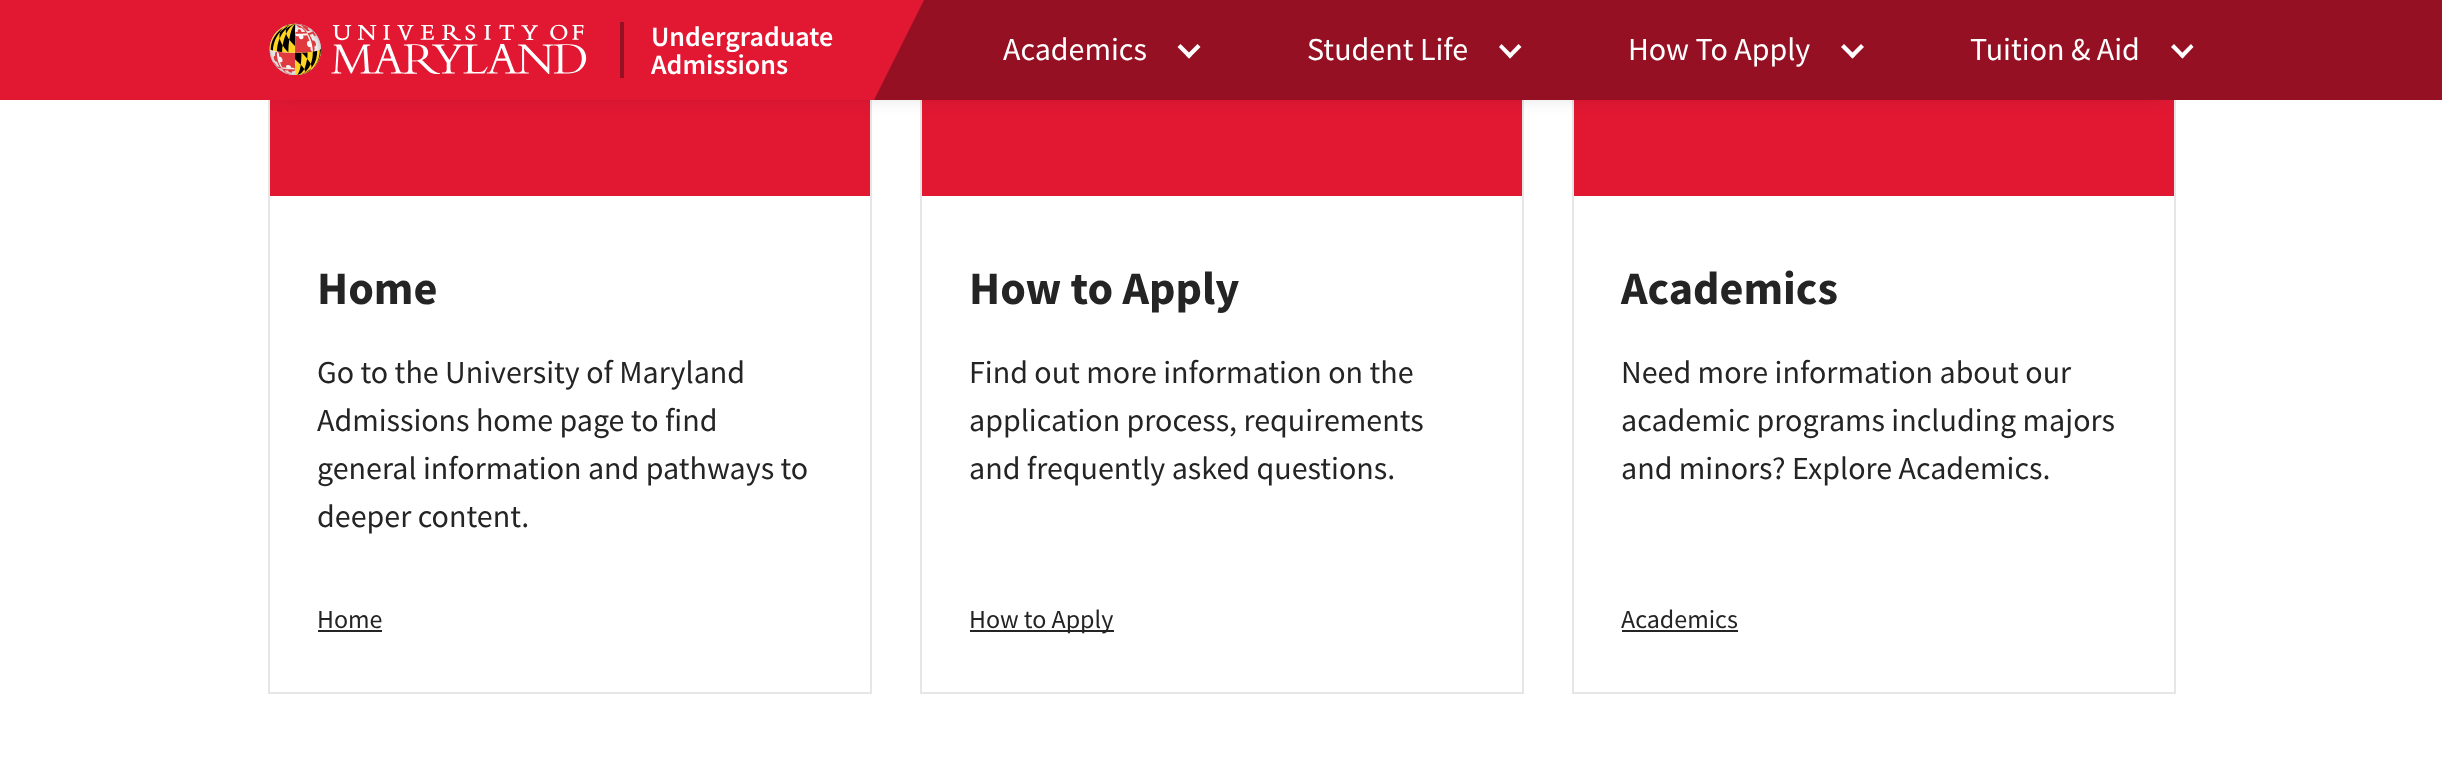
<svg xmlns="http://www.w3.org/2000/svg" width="2442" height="783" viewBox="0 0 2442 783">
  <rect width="100%" height="100%" fill="rgb(255,255,255)"/>
  <rect x="269" y="-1" width="602" height="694" fill="none" stroke="rgb(230,230,230)" stroke-width="2"/>
  <rect x="270" y="100" width="600" height="96" fill="rgb(226,24,51)"/>
  <rect x="921" y="-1" width="602" height="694" fill="none" stroke="rgb(230,230,230)" stroke-width="2"/>
  <rect x="922" y="100" width="600" height="96" fill="rgb(226,24,51)"/>
  <rect x="1573" y="-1" width="602" height="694" fill="none" stroke="rgb(230,230,230)" stroke-width="2"/>
  <rect x="1574" y="100" width="600" height="96" fill="rgb(226,24,51)"/>
  <rect x="278" y="14" width="1888" height="80" fill="rgba(0,0,0,0.2)" filter="blur(10px)"/>
  <rect x="0" y="0" width="874" height="100" fill="rgb(226,24,51)"/>
  <image x="269" y="23" width="318" height="52" href="pic1.png"/>
  <rect x="620" y="22" width="4" height="56" fill="rgb(149,16,34)"/>
  <g font-family="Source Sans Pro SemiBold" font-size="28" font-weight="600" fill="rgb(255,255,255)">
    <text>
      <tspan x="651" y="46">Undergraduate</tspan>
      <tspan x="651" y="74">Admissions</tspan>
    </text>
  </g>
  <rect x="874" y="0" width="1568" height="100" fill="rgb(149,16,34)"/>
  <path d="M874 0H924L874 100Z" fill="rgb(226,24,51)"/>
  <text x="1003" y="60" font-family="Source Sans Pro" font-size="32" fill="rgb(255,255,255)">Academics</text>
  <path d="M1197.5 44L1200.5 47L1189 58.5L1186 55.5Z" fill="rgb(255,255,255)"/>
  <path d="M1180.5 44L1192 55.5L1189 58.5L1177.5 47Z" fill="rgb(255,255,255)"/>
  <text x="1307" y="60" font-family="Source Sans Pro" font-size="32" fill="rgb(255,255,255)">Student Life</text>
  <path d="M1518.5 44L1521.5 47L1510 58.5L1507.5 55.5Z" fill="rgb(255,255,255)"/>
  <path d="M1501.5 44L1513 55.5L1510 58.5L1499 47Z" fill="rgb(255,255,255)"/>
  <text x="1628" y="60" font-family="Source Sans Pro" font-size="32" fill="rgb(255,255,255)">How To Apply</text>
  <path d="M1861 44L1864 47L1852.5 58.5L1849.5 55.5Z" fill="rgb(255,255,255)"/>
  <path d="M1844 44L1855.5 55.5L1852.5 58.5L1841 47Z" fill="rgb(255,255,255)"/>
  <text x="1970" y="60" font-family="Source Sans Pro" font-size="32" fill="rgb(255,255,255)">Tuition &amp; Aid</text>
  <path d="M2191 44L2193.5 47L2182.5 58.5L2179.5 55.5Z" fill="rgb(255,255,255)"/>
  <path d="M2174 44L2185 55.5L2182.5 58.5L2171 47Z" fill="rgb(255,255,255)"/>
  <text x="317" y="304" font-family="Source Sans Pro" font-size="46.25" font-weight="bold" fill="rgb(36,36,36)">Home</text>
  <g font-family="Source Sans Pro" font-size="32" fill="rgb(36,36,36)">
    <text>
      <tspan x="317" y="383">Go to the University of Maryland</tspan>
      <tspan x="317" y="431">Admissions home page to find</tspan>
      <tspan x="317" y="479">general information and pathways to</tspan>
      <tspan x="317" y="527">deeper content.</tspan>
    </text>
  </g>
  <text x="317" y="628" font-family="Source Sans Pro" font-size="26" fill="rgb(36,36,36)">Home</text>
  <rect x="318" y="630" width="64" height="2" fill="rgb(36,36,36)"/>
  <text x="969" y="304" font-family="Source Sans Pro" font-size="46.25" font-weight="bold" fill="rgb(36,36,36)">How to Apply</text>
  <g font-family="Source Sans Pro" font-size="32" fill="rgb(36,36,36)">
    <text>
      <tspan x="969" y="383">Find out more information on the</tspan>
      <tspan x="969" y="431">application process, requirements</tspan>
      <tspan x="969" y="479">and frequently asked questions.</tspan>
    </text>
  </g>
  <rect x="970" y="630" width="144" height="2" fill="rgb(36,36,36)"/>
  <text x="969" y="628" font-family="Source Sans Pro" font-size="26" fill="rgb(36,36,36)">How to Apply</text>
  <text x="1621" y="304" font-family="Source Sans Pro" font-size="46.25" font-weight="bold" fill="rgb(36,36,36)">Academics</text>
  <g font-family="Source Sans Pro" font-size="32" fill="rgb(36,36,36)">
    <text>
      <tspan x="1621" y="383">Need more information about our</tspan>
      <tspan x="1621" y="431">academic programs including majors</tspan>
      <tspan x="1621" y="479">and minors? Explore Academics.</tspan>
    </text>
  </g>
  <text x="1621" y="628" font-family="Source Sans Pro" font-size="26" fill="rgb(36,36,36)">Academics</text>
  <rect x="1622" y="630" width="116" height="2" fill="rgb(36,36,36)"/>
</svg>
